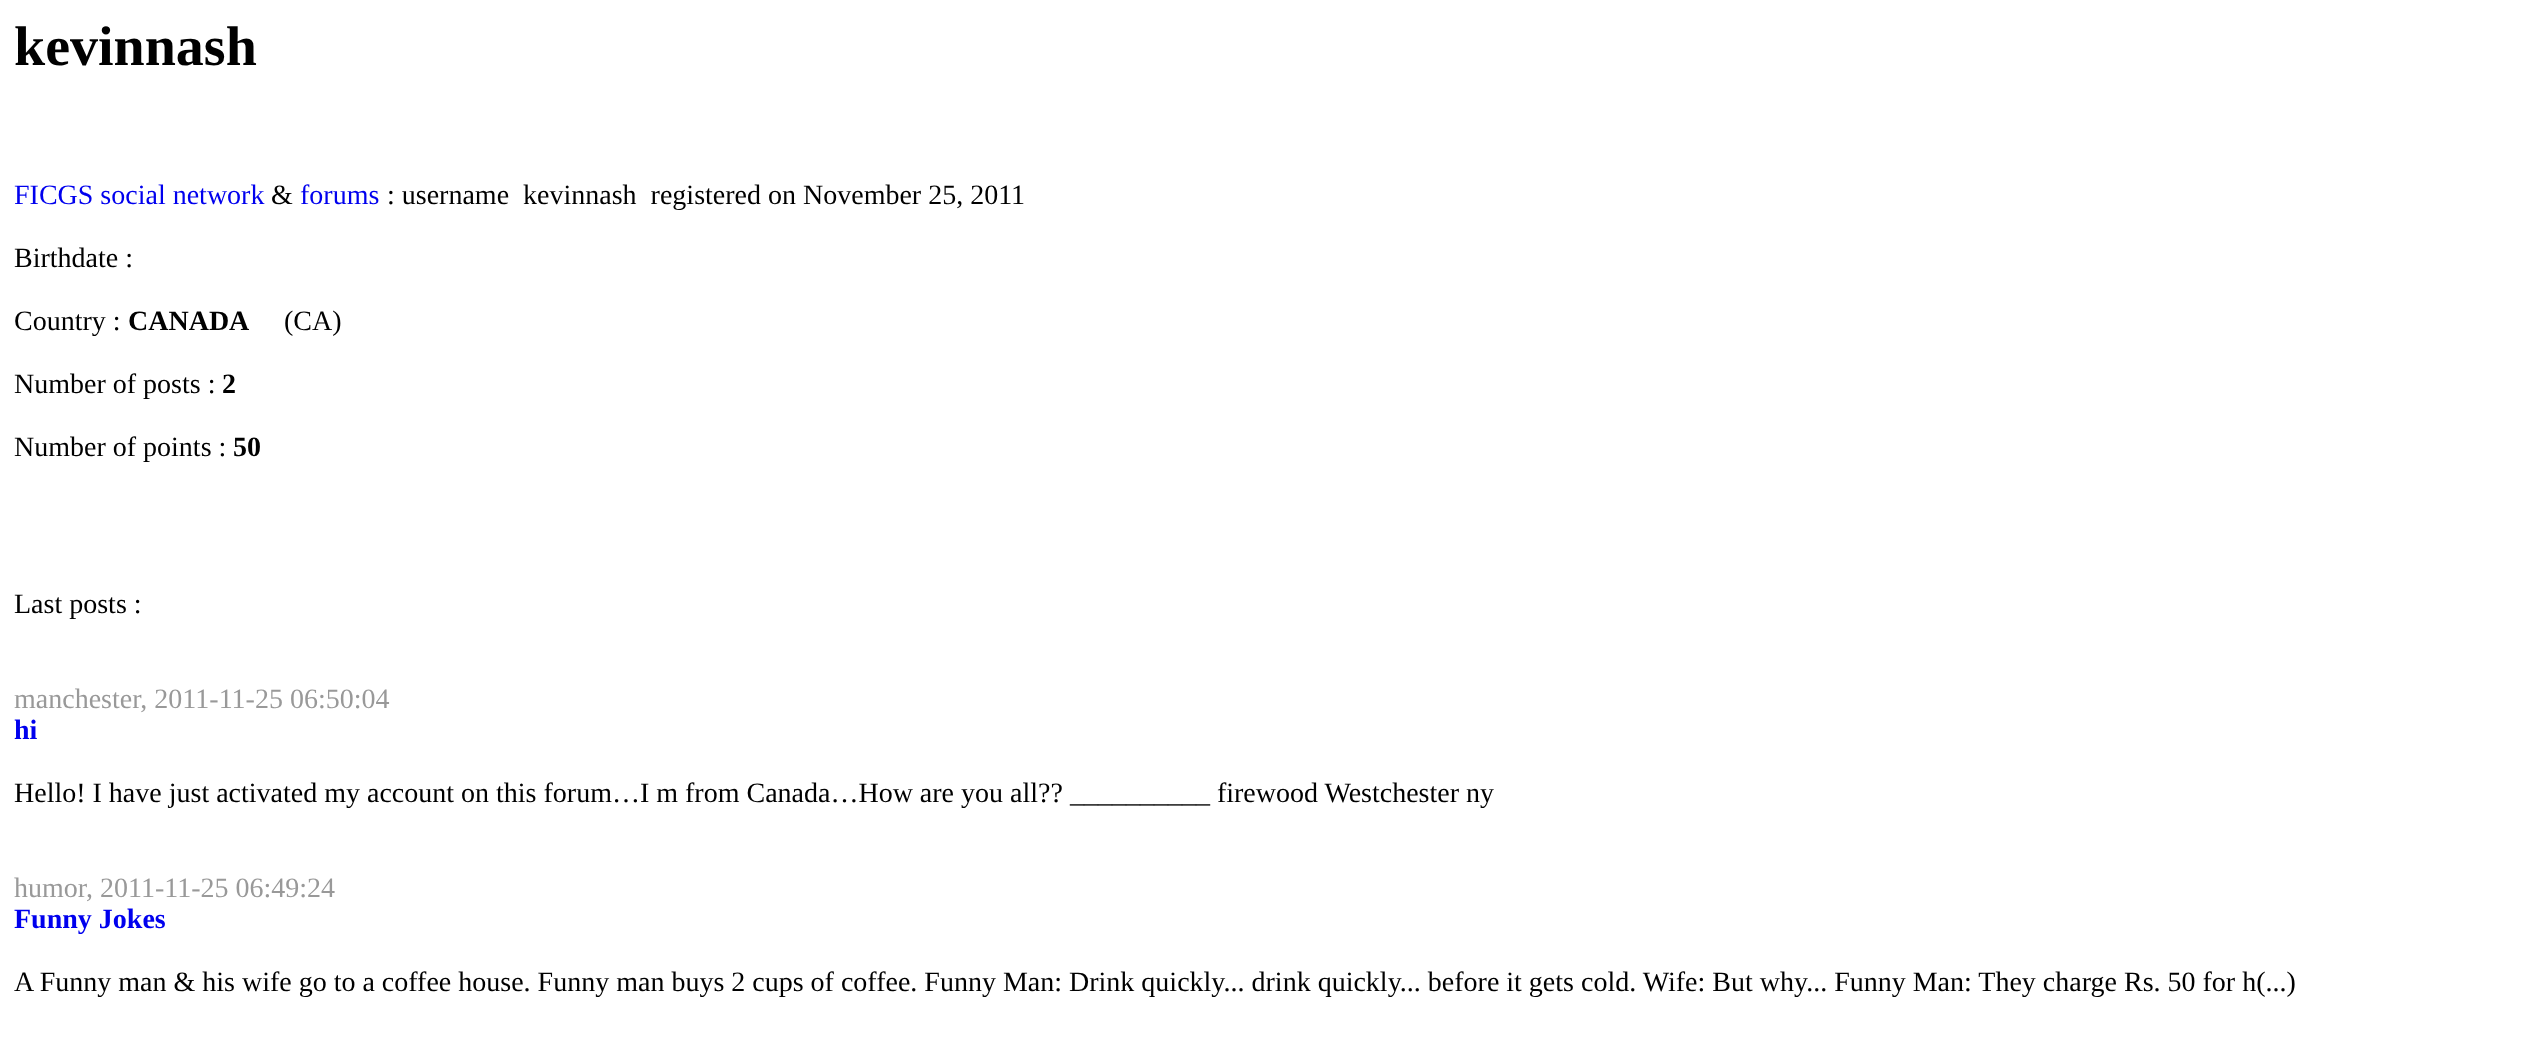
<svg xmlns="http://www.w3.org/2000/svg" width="2529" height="1052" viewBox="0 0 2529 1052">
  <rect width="100%" height="100%" fill="rgb(255,255,255)"/>
  <text x="14" y="65" font-family="Liberation Serif" font-size="56" font-weight="bold" fill="rgb(0,0,0)">kevinnash</text>
  <text x="14" y="204" font-family="Liberation Serif" font-size="28" fill="rgb(0,0,238)">FICGS social network</text>
  <text x="271" y="204" font-family="Liberation Serif" font-size="28" fill="rgb(0,0,0)">&amp;</text>
  <text x="300" y="204" font-family="Liberation Serif" font-size="28" fill="rgb(0,0,238)">forums</text>
  <g font-family="Liberation Serif" font-size="28" fill="rgb(0,0,0)">
    <text x="387" y="204" xml:space="preserve">: username  kevinnash  registered on November 25, 2011</text>
    <text x="14" y="267">Birthdate :</text>
    <text x="14" y="330">Country :</text>
  </g>
  <text x="128" y="330" font-family="Liberation Serif" font-size="28" font-weight="bold" fill="rgb(0,0,0)">CANADA</text>
  <g font-family="Liberation Serif" font-size="28" fill="rgb(0,0,0)">
    <text x="284" y="330">(CA)</text>
    <text x="14" y="393">Number of posts :</text>
  </g>
  <text x="222" y="393" font-family="Liberation Serif" font-size="28" font-weight="bold" fill="rgb(0,0,0)">2</text>
  <text x="14" y="456" font-family="Liberation Serif" font-size="28" fill="rgb(0,0,0)">Number of points :</text>
  <text x="233" y="456" font-family="Liberation Serif" font-size="28" font-weight="bold" fill="rgb(0,0,0)">50</text>
  <text x="14" y="613" font-family="Liberation Serif" font-size="28" fill="rgb(0,0,0)">Last posts :</text>
  <text x="14" y="708" font-family="Liberation Serif" font-size="28" fill="rgb(153,153,153)">manchester, 2011-11-25 06:50:04</text>
  <text x="14" y="739" font-family="Liberation Serif" font-size="28" font-weight="bold" fill="rgb(0,0,238)">hi</text>
  <text x="14" y="802" font-family="Liberation Serif" font-size="28" fill="rgb(0,0,0)">Hello! I have just activated my account on this forum…I m from Canada…How are you all?? __________ firewood Westchester ny</text>
  <text x="14" y="897" font-family="Liberation Serif" font-size="28" fill="rgb(153,153,153)">humor, 2011-11-25 06:49:24</text>
  <text x="14" y="928" font-family="Liberation Serif" font-size="28" font-weight="bold" fill="rgb(0,0,238)">Funny Jokes</text>
  <text x="14" y="991" font-family="Liberation Serif" font-size="28" fill="rgb(0,0,0)">A Funny man &amp; his wife go to a coffee house. Funny man buys 2 cups of coffee. Funny Man: Drink quickly... drink quickly... before it gets cold. Wife: But why... Funny Man: They charge Rs. 50 for h(...)</text>
</svg>
